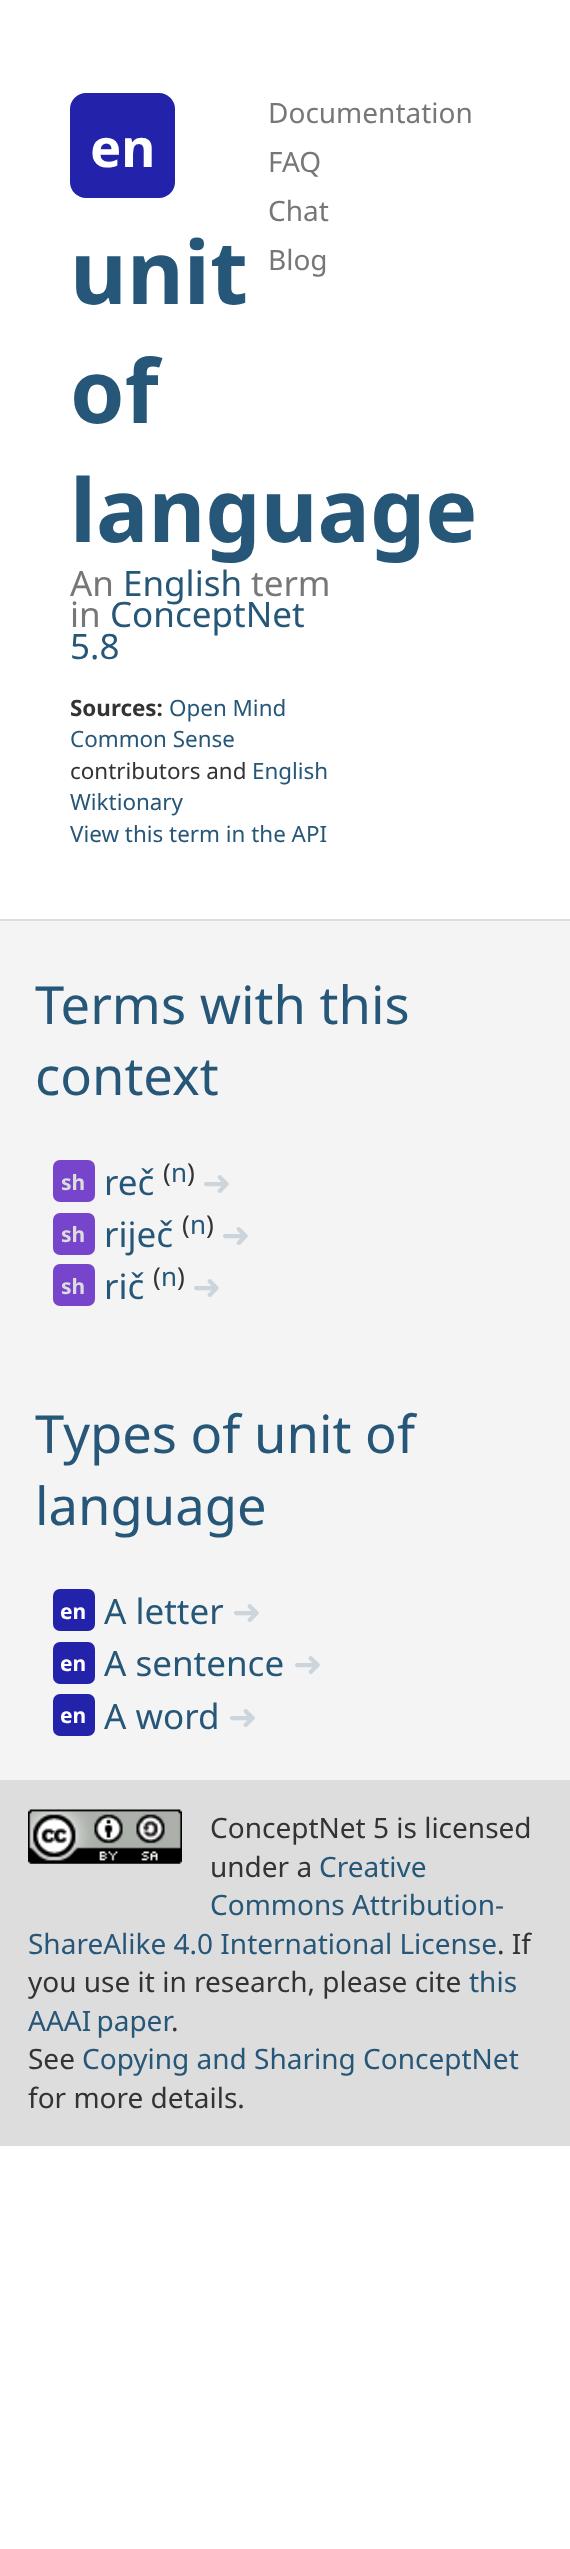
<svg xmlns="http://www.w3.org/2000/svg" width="570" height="2549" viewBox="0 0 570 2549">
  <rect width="100%" height="100%" fill="rgb(255,255,255)"/>
  <g font-family="Noto Sans" font-size="28" fill="rgb(119,119,119)">
    <text>
      <tspan x="268" y="123">Documentation</tspan>
      <tspan x="268" y="172">FAQ</tspan>
      <tspan x="268" y="221">Chat</tspan>
      <tspan x="268" y="270">Blog</tspan>
    </text>
  </g>
  <rect x="70" y="93" width="105" height="105" rx="16" fill="rgb(34,34,170)"/>
  <text x="90" y="167" font-family="Noto Sans" font-size="52.5" font-weight="bold" fill="rgb(255,255,255)">en</text>
  <g font-family="Noto Sans" font-size="87.5" font-weight="bold" fill="rgb(38,87,120)">
    <text>
      <tspan x="70" y="304">unit</tspan>
      <tspan x="70" y="423">of</tspan>
      <tspan x="70" y="542">language</tspan>
    </text>
  </g>
  <text x="70" y="596" font-family="Noto Sans" font-size="35" fill="rgb(119,119,119)">An</text>
  <text x="123" y="596" font-family="Noto Sans" font-size="35" fill="rgb(38,87,120)">English</text>
  <g font-family="Noto Sans" font-size="35" fill="rgb(119,119,119)">
    <text x="251" y="596">term</text>
    <text x="70" y="627">in</text>
  </g>
  <g font-family="Noto Sans" font-size="35" fill="rgb(38,87,120)">
    <text x="110" y="627">ConceptNet</text>
    <text x="70" y="659">5.8</text>
  </g>
  <text x="70" y="716" font-family="Noto Sans" font-size="22.4" font-weight="bold" fill="rgb(51,51,51)">Sources:</text>
  <g font-family="Noto Sans" font-size="22.4" fill="rgb(38,87,120)">
    <text x="169" y="716">Open Mind</text>
    <text x="70" y="747">Common Sense</text>
  </g>
  <text x="70" y="779" font-family="Noto Sans" font-size="22.4" fill="rgb(51,51,51)">contributors and</text>
  <g font-family="Noto Sans" font-size="22.4" fill="rgb(38,87,120)">
    <text x="252" y="779">English</text>
    <text>
      <tspan x="70" y="810">Wiktionary</tspan>
      <tspan x="70" y="842">View this term in the API</tspan>
    </text>
  </g>
  <rect x="0" y="921" width="570" height="859" fill="rgb(244,244,244)"/>
  <rect x="0" y="919" width="570" height="2" fill="rgb(221,221,221)"/>
  <rect x="0" y="1780" width="570" height="366" fill="rgb(221,221,221)"/>
  <g font-family="Noto Sans" font-size="52.5" fill="rgb(38,87,120)">
    <text>
      <tspan x="35" y="1024">Terms with this</tspan>
      <tspan x="35" y="1095">context</tspan>
    </text>
  </g>
  <rect x="53" y="1160" width="42" height="42" rx="7" fill="rgb(119,68,204)"/>
  <text x="61" y="1190" font-family="Noto Sans" font-size="21" font-weight="bold" fill="rgb(221,221,221)">sh</text>
  <text x="104" y="1195" font-family="Noto Sans" font-size="35" fill="rgb(38,87,120)">reč</text>
  <text x="163" y="1182" font-family="Noto Sans" font-size="26" fill="rgb(51,51,51)">(</text>
  <text x="171" y="1182" font-family="Noto Sans" font-size="26" fill="rgb(38,87,120)">n</text>
  <text x="187" y="1182" font-family="Noto Sans" font-size="26" fill="rgb(51,51,51)">)</text>
  <text x="202" y="1195" font-family="DejaVu Sans" font-size="35" fill="rgb(203,213,219)">➜</text>
  <rect x="53" y="1213" width="42" height="42" rx="7" fill="rgb(119,68,204)"/>
  <text x="61" y="1242" font-family="Noto Sans" font-size="21" font-weight="bold" fill="rgb(221,221,221)">sh</text>
  <text x="104" y="1247" font-family="Noto Sans" font-size="35" fill="rgb(38,87,120)">riječ</text>
  <text x="182" y="1234" font-family="Noto Sans" font-size="26" fill="rgb(51,51,51)">(</text>
  <text x="190" y="1234" font-family="Noto Sans" font-size="26" fill="rgb(38,87,120)">n</text>
  <text x="206" y="1234" font-family="Noto Sans" font-size="26" fill="rgb(51,51,51)">)</text>
  <text x="221" y="1247" font-family="DejaVu Sans" font-size="35" fill="rgb(203,213,219)">➜</text>
  <rect x="53" y="1264" width="42" height="42" rx="7" fill="rgb(119,68,204)"/>
  <text x="61" y="1294" font-family="Noto Sans" font-size="21" font-weight="bold" fill="rgb(221,221,221)">sh</text>
  <text x="104" y="1299" font-family="Noto Sans" font-size="35" fill="rgb(38,87,120)">rič</text>
  <text x="153" y="1286" font-family="Noto Sans" font-size="26" fill="rgb(51,51,51)">(</text>
  <text x="161" y="1286" font-family="Noto Sans" font-size="26" fill="rgb(38,87,120)">n</text>
  <text x="177" y="1286" font-family="Noto Sans" font-size="26" fill="rgb(51,51,51)">)</text>
  <text x="192" y="1299" font-family="DejaVu Sans" font-size="35" fill="rgb(203,213,219)">➜</text>
  <g font-family="Noto Sans" font-size="52.5" fill="rgb(38,87,120)">
    <text>
      <tspan x="35" y="1453">Types of unit of</tspan>
      <tspan x="35" y="1525">language</tspan>
    </text>
  </g>
  <rect x="53" y="1589" width="42" height="42" rx="7" fill="rgb(34,34,170)"/>
  <text x="60" y="1619" font-family="Noto Sans" font-size="21" font-weight="bold" fill="rgb(255,255,255)">en</text>
  <text x="104" y="1624" font-family="Noto Sans" font-size="35" fill="rgb(38,87,120)">A letter</text>
  <text x="232" y="1624" font-family="DejaVu Sans" font-size="35" fill="rgb(203,213,219)">➜</text>
  <rect x="53" y="1642" width="42" height="42" rx="7" fill="rgb(34,34,170)"/>
  <text x="60" y="1671" font-family="Noto Sans" font-size="21" font-weight="bold" fill="rgb(255,255,255)">en</text>
  <text x="104" y="1676" font-family="Noto Sans" font-size="35" fill="rgb(38,87,120)">A sentence</text>
  <text x="293" y="1676" font-family="DejaVu Sans" font-size="35" fill="rgb(203,213,219)">➜</text>
  <rect x="53" y="1694" width="42" height="42" rx="7" fill="rgb(34,34,170)"/>
  <text x="60" y="1723" font-family="Noto Sans" font-size="21" font-weight="bold" fill="rgb(255,255,255)">en</text>
  <text x="104" y="1729" font-family="Noto Sans" font-size="35" fill="rgb(38,87,120)">A word</text>
  <text x="228" y="1729" font-family="DejaVu Sans" font-size="35" fill="rgb(203,213,219)">➜</text>
  <image x="28" y="1809" width="154" height="55" href="pic1.png"/>
  <g font-family="Noto Sans" font-size="28" fill="rgb(51,51,51)">
    <text>
      <tspan x="210" y="1838">ConceptNet 5 is licensed</tspan>
      <tspan x="210" y="1877">under a</tspan>
    </text>
  </g>
  <g font-family="Noto Sans" font-size="28" fill="rgb(38,87,120)">
    <text x="319" y="1877">Creative</text>
    <text x="210" y="1915">Commons Attribution-</text>
    <text x="28" y="1954">ShareAlike 4.0 International License</text>
  </g>
  <g font-family="Noto Sans" font-size="28" fill="rgb(51,51,51)">
    <text x="497" y="1954">. If</text>
    <text x="28" y="1992">you use it in research, please cite</text>
  </g>
  <g font-family="Noto Sans" font-size="28" fill="rgb(38,87,120)">
    <text x="469" y="1992">this</text>
    <text x="28" y="2031" word-spacing="-2">AAAI paper</text>
  </g>
  <g font-family="Noto Sans" font-size="28" fill="rgb(51,51,51)">
    <text x="171" y="2031">.</text>
    <text x="28" y="2069">See</text>
  </g>
  <text x="82" y="2069" font-family="Noto Sans" font-size="28" fill="rgb(38,87,120)">Copying and Sharing ConceptNet</text>
  <text x="28" y="2108" font-family="Noto Sans" font-size="28" fill="rgb(51,51,51)">for more details.</text>
</svg>
